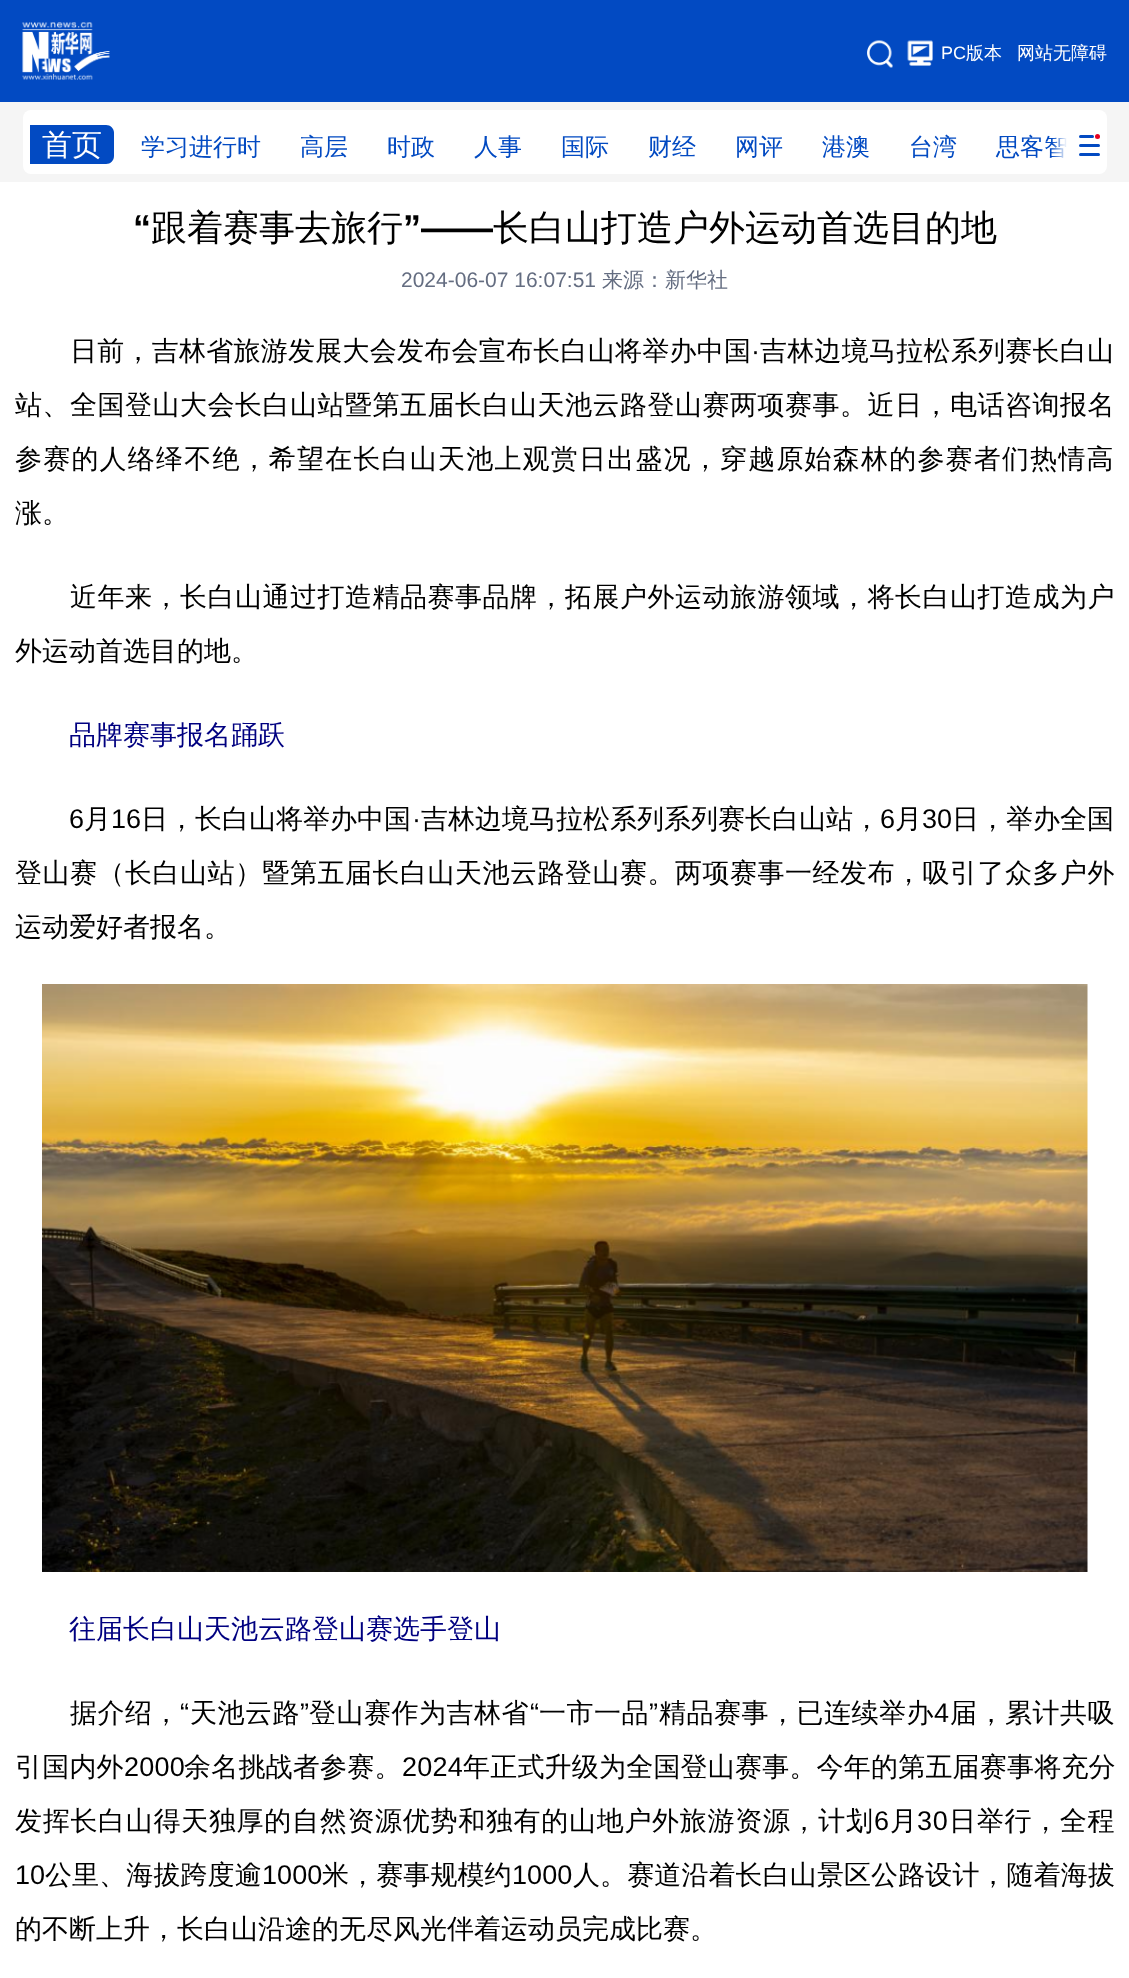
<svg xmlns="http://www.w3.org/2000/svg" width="1129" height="1978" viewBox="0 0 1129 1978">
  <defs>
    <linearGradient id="g1" gradientUnits="userSpaceOnUse" x1="1052" y1="146" x2="1067" y2="146"><stop offset="0" stop-color="rgb(255,255,255)" stop-opacity="0"/><stop offset="1" stop-color="rgb(255,255,255)"/></linearGradient>
  </defs>
  <rect width="100%" height="100%" fill="rgb(255,255,255)"/>
  <rect x="0" y="0" width="1129" height="102" fill="rgb(2,74,194)"/>
  <image x="22" y="22" width="88" height="58" href="pic1.png"/>
  <image x="867" y="40" width="26" height="28" href="pic2.png"/>
  <image x="907" y="40" width="26" height="26" href="pic3.png"/>
  <text x="941" y="59" font-family="Liberation Sans" font-size="18" fill="rgb(255,255,255)">PC</text>
  <g font-family="WenQuanYi Zen Hei" font-size="18" font-weight="500" fill="rgb(255,255,255)">
    <text x="966" y="59">版本</text>
    <text x="1017" y="59">网站无障碍</text>
  </g>
  <rect x="0" y="102" width="1129" height="80" fill="rgb(245,245,245)"/>
  <rect x="23" y="110" width="1084" height="64" rx="8" fill="rgb(255,255,255)"/>
  <path d="M30 125H106C110.5 125 114 128.5 114 133V156C114 160.5 110.5 164 106 164H30Z" fill="rgb(2,74,194)"/>
  <text x="42" y="155" font-family="WenQuanYi Zen Hei" font-size="30" font-weight="500" fill="rgb(255,255,255)">首页</text>
  <g font-family="WenQuanYi Zen Hei" font-size="24" font-weight="500" fill="rgb(2,74,194)">
    <text x="141" y="155">学习进行时</text>
    <text x="300" y="155">高层</text>
    <text x="387" y="155">时政</text>
    <text x="474" y="155">人事</text>
    <text x="561" y="155">国际</text>
    <text x="648" y="155">财经</text>
    <text x="735" y="155">网评</text>
    <text x="822" y="155">港澳</text>
    <text x="909" y="155">台湾</text>
    <text x="996" y="155">思客智</text>
  </g>
  <rect x="1052" y="137" width="15" height="21" fill="url(#g1)"/>
  <rect x="1079" y="135" width="15" height="3" rx="1.5" fill="rgb(2,74,194)"/>
  <circle cx="1097.5" cy="136.5" r="2.5" fill="rgb(229,0,32)"/>
  <rect x="1079" y="144" width="21" height="3" rx="1.5" fill="rgb(2,74,194)"/>
  <rect x="1079" y="153" width="21" height="3" rx="1.5" fill="rgb(2,74,194)"/>
  <text x="133" y="240" font-family="Liberation Sans" font-size="36" font-weight="bold" fill="rgb(0,0,0)">“</text>
  <text x="151" y="240" font-family="WenQuanYi Zen Hei" font-size="36" font-weight="500" fill="rgb(0,0,0)">跟着赛事去旅行</text>
  <text x="403" y="240" font-family="Liberation Sans" font-size="36" font-weight="bold" fill="rgb(0,0,0)">”——</text>
  <text x="493" y="240" font-family="WenQuanYi Zen Hei" font-size="36" font-weight="500" fill="rgb(0,0,0)">长白山打造户外运动首选目的地</text>
  <text x="401" y="287" font-family="Liberation Sans" font-size="21" fill="rgb(100,109,129)">2024-06-07 16:07:51</text>
  <text x="602" y="287" font-family="WenQuanYi Zen Hei" font-size="21" font-weight="500" fill="rgb(100,109,129)">来源：新华社</text>
  <text x="70" y="360" font-family="WenQuanYi Zen Hei" font-size="27" font-weight="500" letter-spacing="0.25" fill="rgb(0,0,0)">日前，吉林省旅游发展大会发布会宣布长白山将举办中国</text>
  <text x="751" y="360" font-family="Liberation Sans" font-size="27" letter-spacing="0.25" fill="rgb(0,0,0)">·</text>
  <text x="760" y="360" font-family="WenQuanYi Zen Hei" font-size="27" font-weight="500" letter-spacing="0.25" fill="rgb(0,0,0)">吉林边境马拉松系列赛长白山</text>
  <text x="15" y="414" font-family="WenQuanYi Zen Hei" font-size="27" font-weight="500" letter-spacing="0.5" fill="rgb(0,0,0)">站、全国登山大会长白山站暨第五届长白山天池云路登山赛两项赛事。近日，电话咨询报名</text>
  <text x="15" y="468" font-family="WenQuanYi Zen Hei" font-size="27" font-weight="500" letter-spacing="1.2" fill="rgb(0,0,0)">参赛的人络绎不绝，希望在长白山天池上观赏日出盛况，穿越原始森林的参赛者们热情高</text>
  <text x="15" y="522" font-family="WenQuanYi Zen Hei" font-size="27" font-weight="500" fill="rgb(0,0,0)">涨。</text>
  <text x="70" y="606" font-family="WenQuanYi Zen Hei" font-size="27" font-weight="500" letter-spacing="0.5" fill="rgb(0,0,0)">近年来，长白山通过打造精品赛事品牌，拓展户外运动旅游领域，将长白山打造成为户</text>
  <text x="15" y="660" font-family="WenQuanYi Zen Hei" font-size="27" font-weight="500" fill="rgb(0,0,0)">外运动首选目的地。</text>
  <text x="69" y="744" font-family="WenQuanYi Zen Hei" font-size="27" font-weight="500" fill="rgb(0,0,128)">品牌赛事报名踊跃</text>
  <text x="69" y="828" font-family="Liberation Sans" font-size="27" fill="rgb(0,0,0)">6</text>
  <text x="84" y="828" font-family="WenQuanYi Zen Hei" font-size="27" font-weight="500" fill="rgb(0,0,0)">月</text>
  <text x="111" y="828" font-family="Liberation Sans" font-size="27" fill="rgb(0,0,0)">16</text>
  <text x="141" y="828" font-family="WenQuanYi Zen Hei" font-size="27" font-weight="500" fill="rgb(0,0,0)">日，长白山将举办中国</text>
  <text x="412" y="828" font-family="Liberation Sans" font-size="27" fill="rgb(0,0,0)">·</text>
  <text x="421" y="828" font-family="WenQuanYi Zen Hei" font-size="27" font-weight="500" fill="rgb(0,0,0)">吉林边境马拉松系列系列赛长白山站，</text>
  <text x="880" y="828" font-family="Liberation Sans" font-size="27" fill="rgb(0,0,0)">6</text>
  <text x="895" y="828" font-family="WenQuanYi Zen Hei" font-size="27" font-weight="500" fill="rgb(0,0,0)">月</text>
  <text x="922" y="828" font-family="Liberation Sans" font-size="27" fill="rgb(0,0,0)">30</text>
  <text x="952" y="828" font-family="WenQuanYi Zen Hei" font-size="27" font-weight="500" fill="rgb(0,0,0)">日，举办全国</text>
  <text x="15" y="882" font-family="WenQuanYi Zen Hei" font-size="27" font-weight="500" letter-spacing="0.5" fill="rgb(0,0,0)">登山赛（长白山站）暨第五届长白山天池云路登山赛。两项赛事一经发布，吸引了众多户外</text>
  <text x="15" y="936" font-family="WenQuanYi Zen Hei" font-size="27" font-weight="500" fill="rgb(0,0,0)">运动爱好者报名。</text>
  <image x="42" y="984" width="1046" height="588" href="pic4.png"/>
  <text x="69" y="1638" font-family="WenQuanYi Zen Hei" font-size="27" font-weight="500" fill="rgb(0,0,128)">往届长白山天池云路登山赛选手登山</text>
  <text x="70" y="1722" font-family="WenQuanYi Zen Hei" font-size="27" font-weight="500" letter-spacing="0.5" fill="rgb(0,0,0)">据介绍，</text>
  <text x="180" y="1722" font-family="Liberation Sans" font-size="27" letter-spacing="0.5" fill="rgb(0,0,0)">“</text>
  <text x="190" y="1722" font-family="WenQuanYi Zen Hei" font-size="27" font-weight="500" letter-spacing="0.5" fill="rgb(0,0,0)">天池云路</text>
  <text x="300" y="1722" font-family="Liberation Sans" font-size="27" letter-spacing="0.5" fill="rgb(0,0,0)">”</text>
  <text x="309" y="1722" font-family="WenQuanYi Zen Hei" font-size="27" font-weight="500" letter-spacing="0.5" fill="rgb(0,0,0)">登山赛作为吉林省</text>
  <text x="530" y="1722" font-family="Liberation Sans" font-size="27" letter-spacing="0.5" fill="rgb(0,0,0)">“</text>
  <text x="539" y="1722" font-family="WenQuanYi Zen Hei" font-size="27" font-weight="500" letter-spacing="0.5" fill="rgb(0,0,0)">一市一品</text>
  <text x="649" y="1722" font-family="Liberation Sans" font-size="27" letter-spacing="0.5" fill="rgb(0,0,0)">”</text>
  <text x="659" y="1722" font-family="WenQuanYi Zen Hei" font-size="27" font-weight="500" letter-spacing="0.5" fill="rgb(0,0,0)">精品赛事，已连续举办</text>
  <text x="934" y="1722" font-family="Liberation Sans" font-size="27" letter-spacing="0.5" fill="rgb(0,0,0)">4</text>
  <text x="950" y="1722" font-family="WenQuanYi Zen Hei" font-size="27" font-weight="500" letter-spacing="0.5" fill="rgb(0,0,0)">届，累计共吸</text>
  <text x="15" y="1776" font-family="WenQuanYi Zen Hei" font-size="27" font-weight="500" letter-spacing="0.2" fill="rgb(0,0,0)">引国内外</text>
  <text x="124" y="1776" font-family="Liberation Sans" font-size="27" letter-spacing="0.2" fill="rgb(0,0,0)">2000</text>
  <text x="184" y="1776" font-family="WenQuanYi Zen Hei" font-size="27" font-weight="500" letter-spacing="0.2" fill="rgb(0,0,0)">余名挑战者参赛。</text>
  <text x="402" y="1776" font-family="Liberation Sans" font-size="27" letter-spacing="0.2" fill="rgb(0,0,0)">2024</text>
  <text x="463" y="1776" font-family="WenQuanYi Zen Hei" font-size="27" font-weight="500" letter-spacing="0.2" fill="rgb(0,0,0)">年正式升级为全国登山赛事。今年的第五届赛事将充分</text>
  <text x="15" y="1830" font-family="WenQuanYi Zen Hei" font-size="27" font-weight="500" letter-spacing="0.7" fill="rgb(0,0,0)">发挥长白山得天独厚的自然资源优势和独有的山地户外旅游资源，计划</text>
  <text x="874" y="1830" font-family="Liberation Sans" font-size="27" letter-spacing="0.7" fill="rgb(0,0,0)">6</text>
  <text x="890" y="1830" font-family="WenQuanYi Zen Hei" font-size="27" font-weight="500" letter-spacing="0.7" fill="rgb(0,0,0)">月</text>
  <text x="917" y="1830" font-family="Liberation Sans" font-size="27" letter-spacing="0.7" fill="rgb(0,0,0)">30</text>
  <text x="949" y="1830" font-family="WenQuanYi Zen Hei" font-size="27" font-weight="500" letter-spacing="0.7" fill="rgb(0,0,0)">日举行，全程</text>
  <text x="15" y="1884" font-family="Liberation Sans" font-size="27" letter-spacing="0.1" fill="rgb(0,0,0)">10</text>
  <text x="45" y="1884" font-family="WenQuanYi Zen Hei" font-size="27" font-weight="500" letter-spacing="0.1" fill="rgb(0,0,0)">公里、海拔跨度逾</text>
  <text x="262" y="1884" font-family="Liberation Sans" font-size="27" letter-spacing="0.1" fill="rgb(0,0,0)">1000</text>
  <text x="322" y="1884" font-family="WenQuanYi Zen Hei" font-size="27" font-weight="500" letter-spacing="0.1" fill="rgb(0,0,0)">米，赛事规模约</text>
  <text x="512" y="1884" font-family="Liberation Sans" font-size="27" letter-spacing="0.1" fill="rgb(0,0,0)">1000</text>
  <text x="573" y="1884" font-family="WenQuanYi Zen Hei" font-size="27" font-weight="500" letter-spacing="0.1" fill="rgb(0,0,0)">人。赛道沿着长白山景区公路设计，随着海拔</text>
  <text x="15" y="1938" font-family="WenQuanYi Zen Hei" font-size="27" font-weight="500" fill="rgb(0,0,0)">的不断上升，长白山沿途的无尽风光伴着运动员完成比赛。</text>
</svg>
